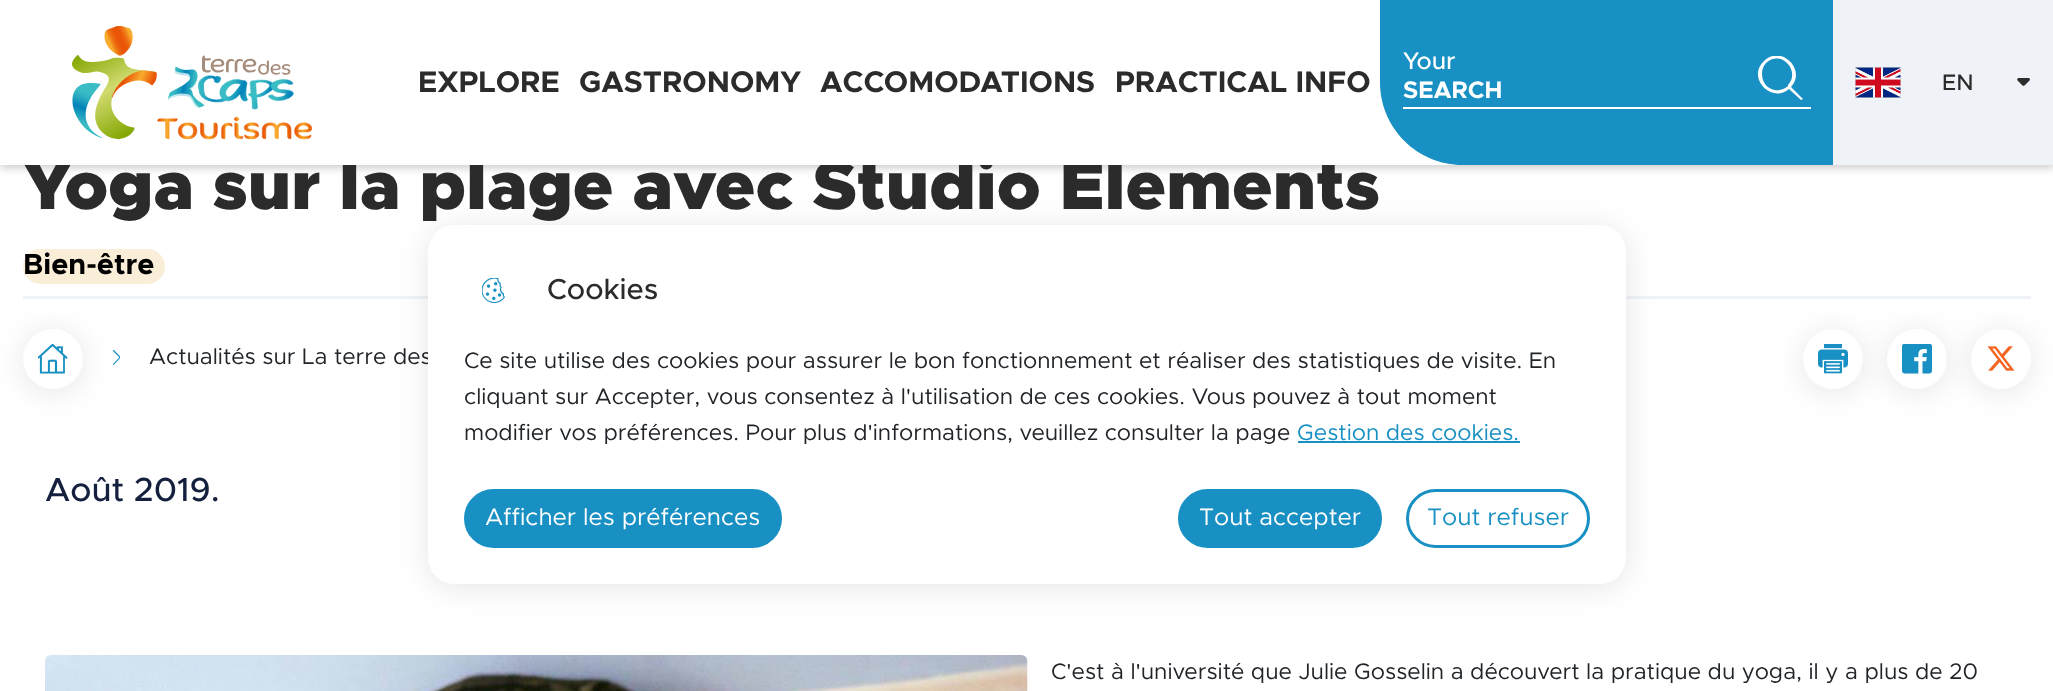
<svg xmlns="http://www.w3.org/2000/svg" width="2053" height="691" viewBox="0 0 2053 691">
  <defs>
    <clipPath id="clip1"><rect x="1758" y="56" width="45" height="45"/></clipPath>
  </defs>
  <rect width="100%" height="100%" fill="rgb(255,255,255)"/>
  <rect x="0" y="3" width="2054" height="165" fill="rgba(0,0,0,0.2)" filter="blur(4px)"/>
  <text x="23" y="209" font-family="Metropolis" font-size="69.1" font-weight="900" fill="rgb(43,43,43)">Yoga sur la plage avec Studio Elements</text>
  <rect x="0" y="0" width="1462" height="165" fill="rgb(255,255,255)"/>
  <image x="72" y="26" width="240" height="114" href="pic1.png"/>
  <g font-family="Metropolis" font-size="30" font-weight="bold" fill="rgb(43,43,43)">
    <text x="418" y="92">EXPLORE</text>
    <text x="579" y="92">GASTRONOMY</text>
    <text x="820" y="92">ACCOMODATIONS</text>
    <text x="1115" y="92">PRACTICAL INFO</text>
  </g>
  <path d="M1380 0H1833V165H1462.5C1417 165 1380 128 1380 82.5Z" fill="rgb(24,144,195)"/>
  <text x="1403" y="69" font-family="Metropolis" font-size="24" font-weight="500" fill="rgb(255,255,255)">Your</text>
  <text x="1403" y="98" font-family="Metropolis" font-size="24" font-weight="bold" fill="rgb(255,255,255)">SEARCH</text>
  <rect x="1403" y="107" width="408" height="2" fill="rgb(255,255,255)"/>
  <g clip-path="url(#clip1)">
    <path d="M1802 98L1803 99L1801 100L1789 89C1772 104 1746 78 1764 61C1781 44 1807 70 1791 87ZM1762 74C1762 89 1778 95 1788 86V85C1801 71 1781 49 1766 63C1763 66 1762 70 1762 74Z" fill="rgb(255,255,255)" fill-rule="evenodd"/>
  </g>
  <rect x="1833" y="0" width="220" height="165" fill="rgb(239,243,248)"/>
  <image x="1855" y="67" width="46" height="31" href="pic2.png"/>
  <text x="1942" y="90" font-family="Metropolis" font-size="22.5" font-weight="500" fill="rgb(43,43,43)">EN</text>
  <image x="2017" y="78" width="13" height="8" href="pic3.png"/>
  <rect x="23" y="249" width="142" height="35" rx="17.5" fill="rgb(251,238,216)"/>
  <text x="23" y="274" font-family="Metropolis" font-size="29" font-weight="bold" fill="rgb(0,0,0)">Bien-être</text>
  <rect x="23" y="296" width="2008" height="3" fill="rgb(239,243,248)"/>
  <image x="113" y="350" width="7" height="15" href="pic5.png"/>
  <rect x="23" y="332" width="60" height="60" rx="30" fill="rgba(0,0,0,0.1)" filter="blur(15px)"/>
  <circle cx="53" cy="359" r="30" fill="rgb(255,255,255)"/>
  <image x="38" y="344" width="30" height="30" href="pic4.png"/>
  <text x="149" y="364" font-family="Metropolis" font-size="22.5" fill="rgb(33,37,41)">Actualités sur La terre des</text>
  <rect x="1803" y="332" width="60" height="60" rx="30" fill="rgba(0,0,0,0.1)" filter="blur(15px)"/>
  <circle cx="1833" cy="359" r="30" fill="rgb(255,255,255)"/>
  <image x="1818" y="344" width="30" height="30" href="pic6.png"/>
  <rect x="1887" y="332" width="60" height="60" rx="30" fill="rgba(0,0,0,0.1)" filter="blur(15px)"/>
  <circle cx="1917" cy="359" r="30" fill="rgb(255,255,255)"/>
  <image x="1902" y="344" width="30" height="30" href="pic7.png"/>
  <rect x="1971" y="332" width="60" height="60" rx="30" fill="rgba(0,0,0,0.1)" filter="blur(15px)"/>
  <circle cx="2001" cy="359" r="30" fill="rgb(255,255,255)"/>
  <image x="1987" y="346" width="28" height="25" href="pic8.png"/>
  <text x="45" y="501" font-family="Metropolis" font-size="33.5" font-weight="500" fill="rgb(20,32,62)">Août 2019.</text>
  <image x="45" y="655" width="983" height="36" href="pic9.png"/>
  <text x="1051" y="679" font-family="Metropolis" font-size="22.5" fill="rgb(33,37,41)">C'est à l'université que Julie Gosselin a découvert la pratique du yoga, il y a plus de 20</text>
  <rect x="428" y="228" width="1198" height="359" rx="26" fill="rgba(0,0,0,0.1)" filter="blur(15px)"/>
  <rect x="428" y="225" width="1198" height="359" rx="26" fill="rgb(255,255,255)"/>
  <image x="482" y="278" width="23" height="25" href="pic10.png"/>
  <text x="547" y="299" font-family="Metropolis" font-size="29" font-weight="500" fill="rgb(43,43,43)">Cookies</text>
  <g font-family="Metropolis" font-size="22.5" fill="rgb(33,37,41)">
    <text>
      <tspan x="464" y="368">Ce site utilise des cookies pour assurer le bon fonctionnement et réaliser des statistiques de visite. En</tspan>
      <tspan x="464" y="404">cliquant sur Accepter, vous consentez à l'utilisation de ces cookies. Vous pouvez à tout moment</tspan>
      <tspan x="464" y="440">modifier vos préférences. Pour plus d'informations, veuillez consulter la page</tspan>
    </text>
  </g>
  <text x="1297" y="440" font-family="Metropolis" font-size="22.5" fill="rgb(24,144,195)">Gestion des cookies.</text>
  <rect x="1298" y="441" width="222" height="2" fill="rgb(24,144,195)"/>
  <rect x="465.5" y="490.5" width="315" height="56" rx="28" fill="rgb(24,144,195)" stroke="rgb(24,144,195)" stroke-width="3"/>
  <text x="485" y="525" font-family="Metropolis" font-size="24" fill="rgb(255,255,255)">Afficher les préférences</text>
  <rect x="1179.5" y="490.5" width="201" height="56" rx="28" fill="rgb(24,144,195)" stroke="rgb(24,144,195)" stroke-width="3"/>
  <text x="1199" y="525" font-family="Metropolis" font-size="24" fill="rgb(255,255,255)">Tout accepter</text>
  <rect x="1407.5" y="490.5" width="181" height="56" rx="28" fill="none" stroke="rgb(24,144,195)" stroke-width="3"/>
  <text x="1427" y="525" font-family="Metropolis" font-size="24" fill="rgb(24,144,195)">Tout refuser</text>
</svg>
